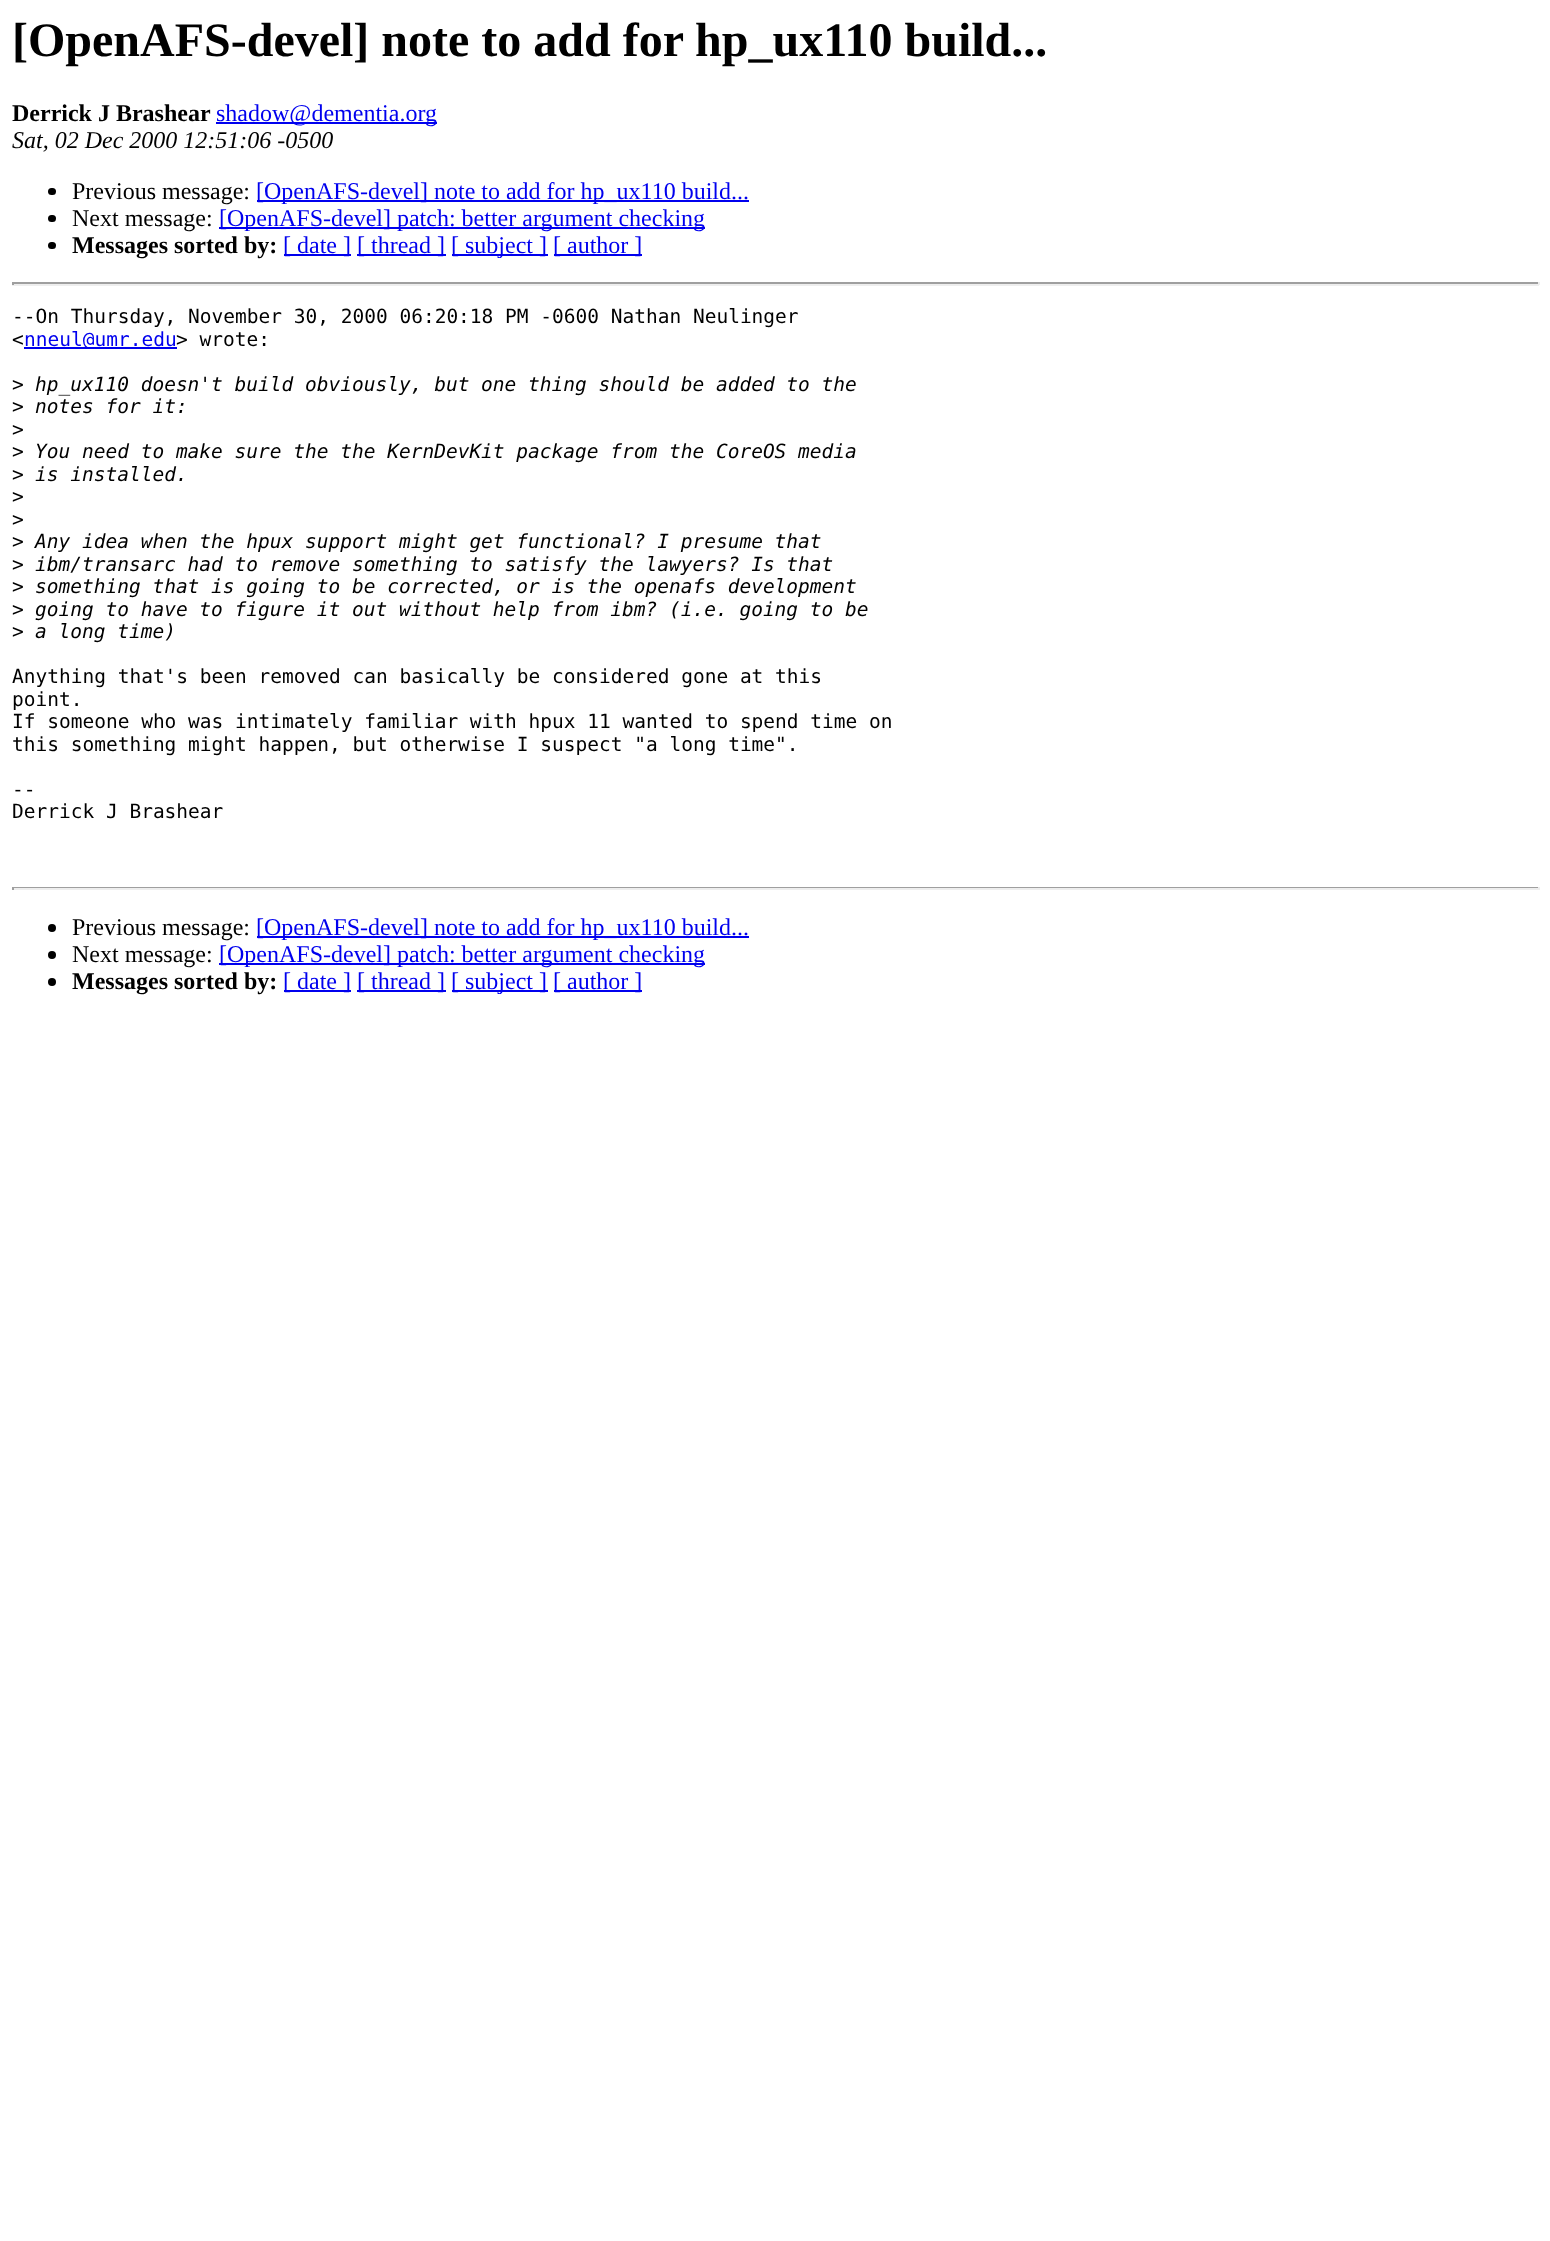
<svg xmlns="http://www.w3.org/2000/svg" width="1550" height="2241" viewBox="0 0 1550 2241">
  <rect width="100%" height="100%" fill="rgb(255,255,255)"/>
  <text x="12" y="56" font-family="Liberation Serif" font-size="48" font-weight="bold" fill="rgb(0,0,0)">[OpenAFS-devel] note to add for hp_ux110 build...</text>
  <text x="12" y="121" font-family="Liberation Serif" font-size="24" font-weight="bold" fill="rgb(0,0,0)">Derrick J Brashear</text>
  <rect x="216" y="122" width="221" height="2" fill="rgb(0,0,238)"/>
  <text x="216" y="121" font-family="Liberation Serif" font-size="24" fill="rgb(0,0,238)">shadow@dementia.org</text>
  <text x="12" y="148" font-family="Liberation Serif" font-size="24" font-style="italic" fill="rgb(0,0,0)">Sat, 02 Dec 2000 12:51:06 -0500</text>
  <rect x="48" y="188" width="8" height="7" rx="3.5" fill="rgb(0,0,0)"/>
  <text x="72" y="199" font-family="Liberation Serif" font-size="24" fill="rgb(0,0,0)">Previous message:</text>
  <rect x="257" y="200" width="492" height="2" fill="rgb(0,0,238)"/>
  <text x="256" y="199" font-family="Liberation Serif" font-size="24" fill="rgb(0,0,238)">[OpenAFS-devel] note to add for hp_ux110 build...</text>
  <rect x="48" y="215" width="8" height="7" rx="3.5" fill="rgb(0,0,0)"/>
  <text x="72" y="226" font-family="Liberation Serif" font-size="24" fill="rgb(0,0,0)">Next message:</text>
  <rect x="219" y="227" width="486" height="2" fill="rgb(0,0,238)"/>
  <text x="219" y="226" font-family="Liberation Serif" font-size="24" fill="rgb(0,0,238)">[OpenAFS-devel] patch: better argument checking</text>
  <rect x="48" y="242" width="8" height="7" rx="3.5" fill="rgb(0,0,0)"/>
  <text x="72" y="253" font-family="Liberation Serif" font-size="24" font-weight="bold" fill="rgb(0,0,0)">Messages sorted by:</text>
  <rect x="284" y="254" width="67" height="2" fill="rgb(0,0,238)"/>
  <text x="283" y="253" font-family="Liberation Serif" font-size="24" fill="rgb(0,0,238)">[ date ]</text>
  <rect x="357" y="254" width="89" height="2" fill="rgb(0,0,238)"/>
  <text x="357" y="253" font-family="Liberation Serif" font-size="24" fill="rgb(0,0,238)">[ thread ]</text>
  <rect x="452" y="254" width="96" height="2" fill="rgb(0,0,238)"/>
  <text x="451" y="253" font-family="Liberation Serif" font-size="24" fill="rgb(0,0,238)">[ subject ]</text>
  <rect x="554" y="254" width="88" height="2" fill="rgb(0,0,238)"/>
  <text x="553" y="253" font-family="Liberation Serif" font-size="24" fill="rgb(0,0,238)">[ author ]</text>
  <rect x="12" y="282" width="1527" height="2" fill="rgb(159,159,159)"/>
  <rect x="1538" y="282" width="2" height="3" fill="rgb(238,238,238)"/>
  <rect x="12" y="284" width="1527" height="2" fill="rgb(238,238,238)"/>
  <rect x="12" y="282" width="2" height="3" fill="rgb(159,159,159)"/>
  <g font-family="DejaVu Sans Mono" font-size="19.5" fill="rgb(0,0,0)">
    <text>
      <tspan x="12" y="323">--On Thursday, November 30, 2000 06:20:18 PM -0600 Nathan Neulinger</tspan>
      <tspan x="12" y="346">&lt;</tspan>
    </text>
  </g>
  <rect x="24" y="347" width="153" height="2" fill="rgb(0,0,238)"/>
  <text x="24" y="346" font-family="DejaVu Sans Mono" font-size="19.5" fill="rgb(0,0,238)">nneul@umr.edu</text>
  <g font-family="DejaVu Sans Mono" font-size="19.5" fill="rgb(0,0,0)">
    <text x="176" y="346">&gt; wrote:</text>
    <text x="12" y="391">&gt;</text>
  </g>
  <text x="35" y="391" font-family="DejaVu Sans Mono" font-size="19.5" font-style="italic" fill="rgb(0,0,0)">hp_ux110 doesn't build obviously, but one thing should be added to the</text>
  <text x="12" y="413" font-family="DejaVu Sans Mono" font-size="19.5" fill="rgb(0,0,0)">&gt;</text>
  <text x="35" y="413" font-family="DejaVu Sans Mono" font-size="19.5" font-style="italic" fill="rgb(0,0,0)">notes for it:</text>
  <g font-family="DejaVu Sans Mono" font-size="19.5" fill="rgb(0,0,0)">
    <text>
      <tspan x="12" y="436">&gt;</tspan>
      <tspan x="12" y="458">&gt;</tspan>
    </text>
  </g>
  <text x="35" y="458" font-family="DejaVu Sans Mono" font-size="19.5" font-style="italic" fill="rgb(0,0,0)">You need to make sure the the KernDevKit package from the CoreOS media</text>
  <text x="12" y="481" font-family="DejaVu Sans Mono" font-size="19.5" fill="rgb(0,0,0)">&gt;</text>
  <text x="35" y="481" font-family="DejaVu Sans Mono" font-size="19.5" font-style="italic" fill="rgb(0,0,0)">is installed.</text>
  <g font-family="DejaVu Sans Mono" font-size="19.5" fill="rgb(0,0,0)">
    <text>
      <tspan x="12" y="503">&gt;</tspan>
      <tspan x="12" y="526">&gt;</tspan>
      <tspan x="12" y="548">&gt;</tspan>
    </text>
  </g>
  <text x="35" y="548" font-family="DejaVu Sans Mono" font-size="19.5" font-style="italic" fill="rgb(0,0,0)">Any idea when the hpux support might get functional? I presume that</text>
  <text x="12" y="571" font-family="DejaVu Sans Mono" font-size="19.5" fill="rgb(0,0,0)">&gt;</text>
  <text x="35" y="571" font-family="DejaVu Sans Mono" font-size="19.5" font-style="italic" fill="rgb(0,0,0)">ibm/transarc had to remove something to satisfy the lawyers? Is that</text>
  <text x="12" y="593" font-family="DejaVu Sans Mono" font-size="19.5" fill="rgb(0,0,0)">&gt;</text>
  <text x="35" y="593" font-family="DejaVu Sans Mono" font-size="19.5" font-style="italic" fill="rgb(0,0,0)">something that is going to be corrected, or is the openafs development</text>
  <text x="12" y="616" font-family="DejaVu Sans Mono" font-size="19.5" fill="rgb(0,0,0)">&gt;</text>
  <text x="35" y="616" font-family="DejaVu Sans Mono" font-size="19.5" font-style="italic" fill="rgb(0,0,0)">going to have to figure it out without help from ibm? (i.e. going to be</text>
  <text x="12" y="638" font-family="DejaVu Sans Mono" font-size="19.5" fill="rgb(0,0,0)">&gt;</text>
  <text x="35" y="638" font-family="DejaVu Sans Mono" font-size="19.5" font-style="italic" fill="rgb(0,0,0)">a long time)</text>
  <g font-family="DejaVu Sans Mono" font-size="19.5" fill="rgb(0,0,0)">
    <text>
      <tspan x="12" y="683">Anything that's been removed can basically be considered gone at this</tspan>
      <tspan x="12" y="706">point.</tspan>
      <tspan x="12" y="728">If someone who was intimately familiar with hpux 11 wanted to spend time on</tspan>
      <tspan x="12" y="751">this something might happen, but otherwise I suspect "a long time".</tspan>
    </text>
    <text>
      <tspan x="12" y="796">--</tspan>
      <tspan x="12" y="818">Derrick J Brashear</tspan>
    </text>
  </g>
  <rect x="12" y="887" width="1527" height="1" fill="rgb(159,159,159)"/>
  <rect x="1538" y="887" width="2" height="3" fill="rgb(238,238,238)"/>
  <rect x="12" y="888" width="1527" height="2" fill="rgb(238,238,238)"/>
  <rect x="12" y="887" width="2" height="3" fill="rgb(159,159,159)"/>
  <circle cx="52" cy="928" r="4" fill="rgb(0,0,0)"/>
  <text x="72" y="935" font-family="Liberation Serif" font-size="24" fill="rgb(0,0,0)">Previous message:</text>
  <rect x="257" y="936" width="492" height="2" fill="rgb(0,0,238)"/>
  <text x="256" y="935" font-family="Liberation Serif" font-size="24" fill="rgb(0,0,238)">[OpenAFS-devel] note to add for hp_ux110 build...</text>
  <circle cx="52" cy="955" r="4" fill="rgb(0,0,0)"/>
  <text x="72" y="962" font-family="Liberation Serif" font-size="24" fill="rgb(0,0,0)">Next message:</text>
  <rect x="219" y="963" width="486" height="2" fill="rgb(0,0,238)"/>
  <text x="219" y="962" font-family="Liberation Serif" font-size="24" fill="rgb(0,0,238)">[OpenAFS-devel] patch: better argument checking</text>
  <circle cx="52" cy="982" r="4" fill="rgb(0,0,0)"/>
  <text x="72" y="989" font-family="Liberation Serif" font-size="24" font-weight="bold" fill="rgb(0,0,0)">Messages sorted by:</text>
  <rect x="284" y="990" width="67" height="2" fill="rgb(0,0,238)"/>
  <text x="283" y="989" font-family="Liberation Serif" font-size="24" fill="rgb(0,0,238)">[ date ]</text>
  <rect x="357" y="990" width="89" height="2" fill="rgb(0,0,238)"/>
  <text x="357" y="989" font-family="Liberation Serif" font-size="24" fill="rgb(0,0,238)">[ thread ]</text>
  <rect x="452" y="990" width="96" height="2" fill="rgb(0,0,238)"/>
  <text x="451" y="989" font-family="Liberation Serif" font-size="24" fill="rgb(0,0,238)">[ subject ]</text>
  <rect x="554" y="990" width="88" height="2" fill="rgb(0,0,238)"/>
  <text x="553" y="989" font-family="Liberation Serif" font-size="24" fill="rgb(0,0,238)">[ author ]</text>
</svg>
